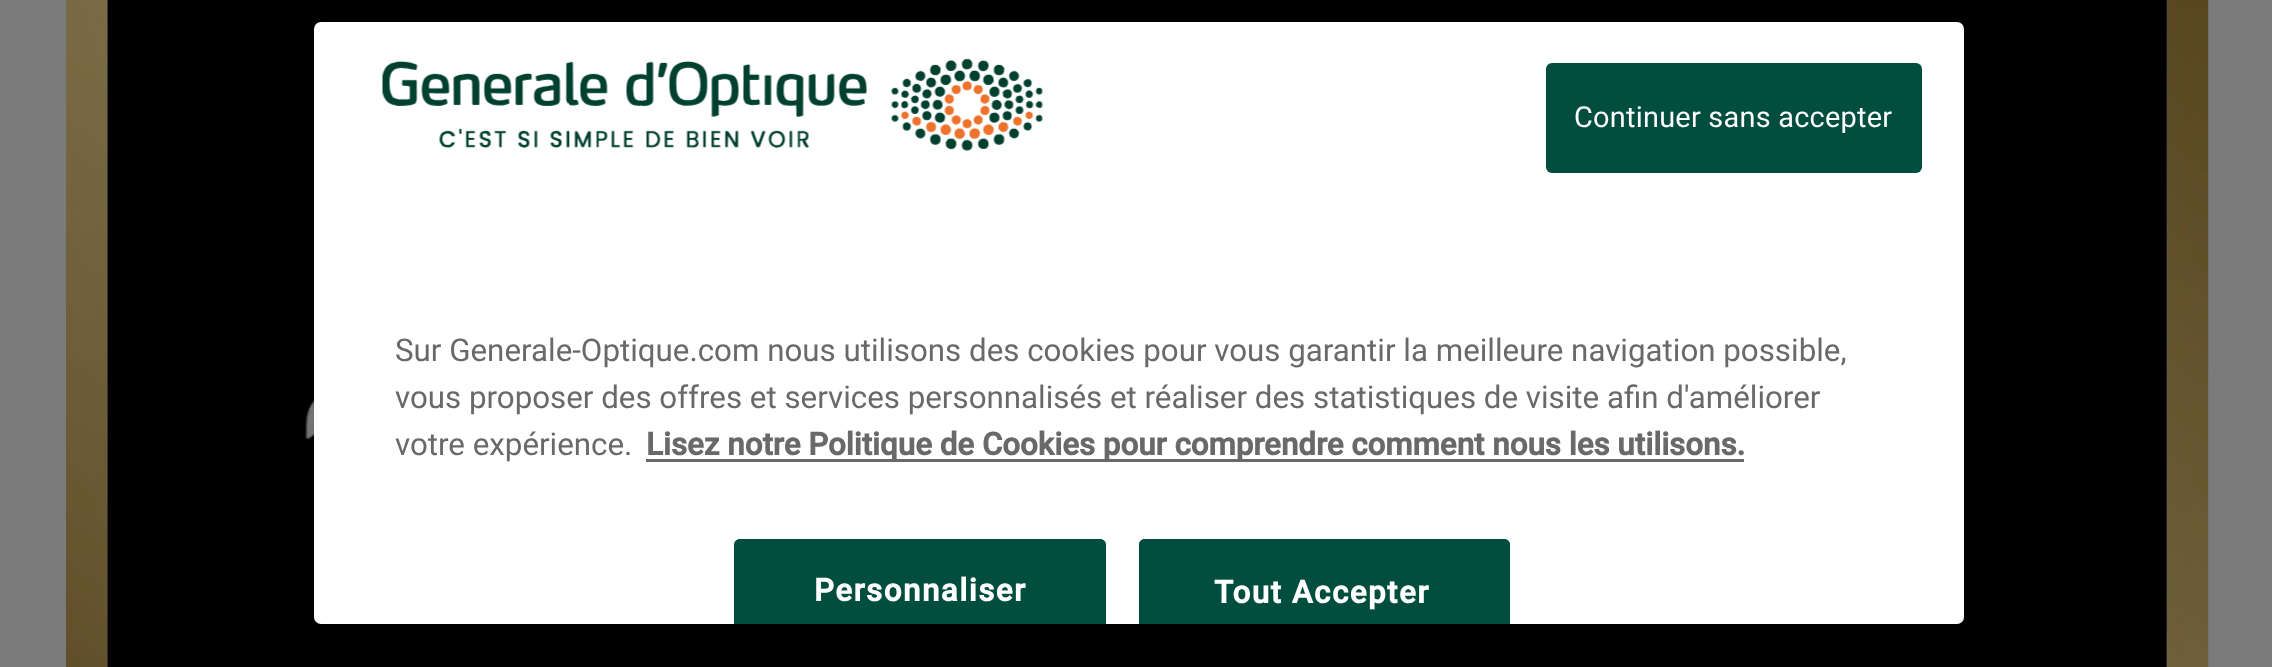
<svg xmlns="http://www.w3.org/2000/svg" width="2272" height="667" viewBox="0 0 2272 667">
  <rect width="100%" height="100%" fill="rgb(123,123,124)"/>
  <image x="66" y="0" width="2143" height="667" href="pic1.png"/>
  <rect x="314" y="22" width="1650" height="602" rx="7" fill="rgba(0,0,0,0.2)" filter="blur(25px)"/>
  <rect x="314" y="22" width="1650" height="602" rx="7" fill="rgb(255,255,255)"/>
  <image x="382" y="58" width="661" height="93" href="pic2.png"/>
  <rect x="1546" y="63" width="376" height="110" rx="6" fill="rgb(1,78,63)"/>
  <text x="1574" y="127" font-family="Roboto" font-size="28.9" letter-spacing="0.25" fill="rgb(255,255,255)">Continuer sans accepter</text>
  <g font-family="Roboto" font-size="31.3" fill="rgb(105,105,105)">
    <text>
      <tspan x="395" y="361">Sur Generale-Optique.com nous utilisons des cookies pour vous garantir la meilleure navigation possible,</tspan>
      <tspan x="395" y="408">vous proposer des offres et services personnalisés et réaliser des statistiques de visite afin d'améliorer</tspan>
      <tspan x="395" y="455">votre expérience.</tspan>
    </text>
  </g>
  <rect x="646" y="459" width="1098" height="3" fill="rgb(105,105,105)"/>
  <text x="646" y="455" font-family="Roboto" font-size="31.3" font-weight="bold" fill="rgb(105,105,105)">Lisez notre Politique de Cookies pour comprendre comment nous les utilisons.</text>
  <path d="M740 539H1100C1103.5 539 1106 541.5 1106 545V624H734V545C734 541.5 736.5 539 740 539Z" fill="rgb(1,78,63)"/>
  <text x="814" y="601" font-family="Roboto" font-size="31.3" font-weight="bold" letter-spacing="1.5" fill="rgb(255,255,255)">Personnaliser</text>
  <path d="M1145 539H1504C1507.5 539 1510 541.5 1510 545V624H1139V545C1139 541.5 1141.5 539 1145 539Z" fill="rgb(1,78,63)"/>
  <path d="M1145 539C1142 539 1139 542 1139 545V624H1142V545C1142 543 1143 542 1145 542H1504C1506 542 1507 543 1507 545V624H1510V545C1510 542 1507 539 1504 539Z" fill="rgb(1,78,63)"/>
  <text x="1214" y="603" font-family="Roboto" font-size="31.3" font-weight="bold" letter-spacing="1.5" fill="rgb(255,255,255)">Tout Accepter</text>
</svg>
